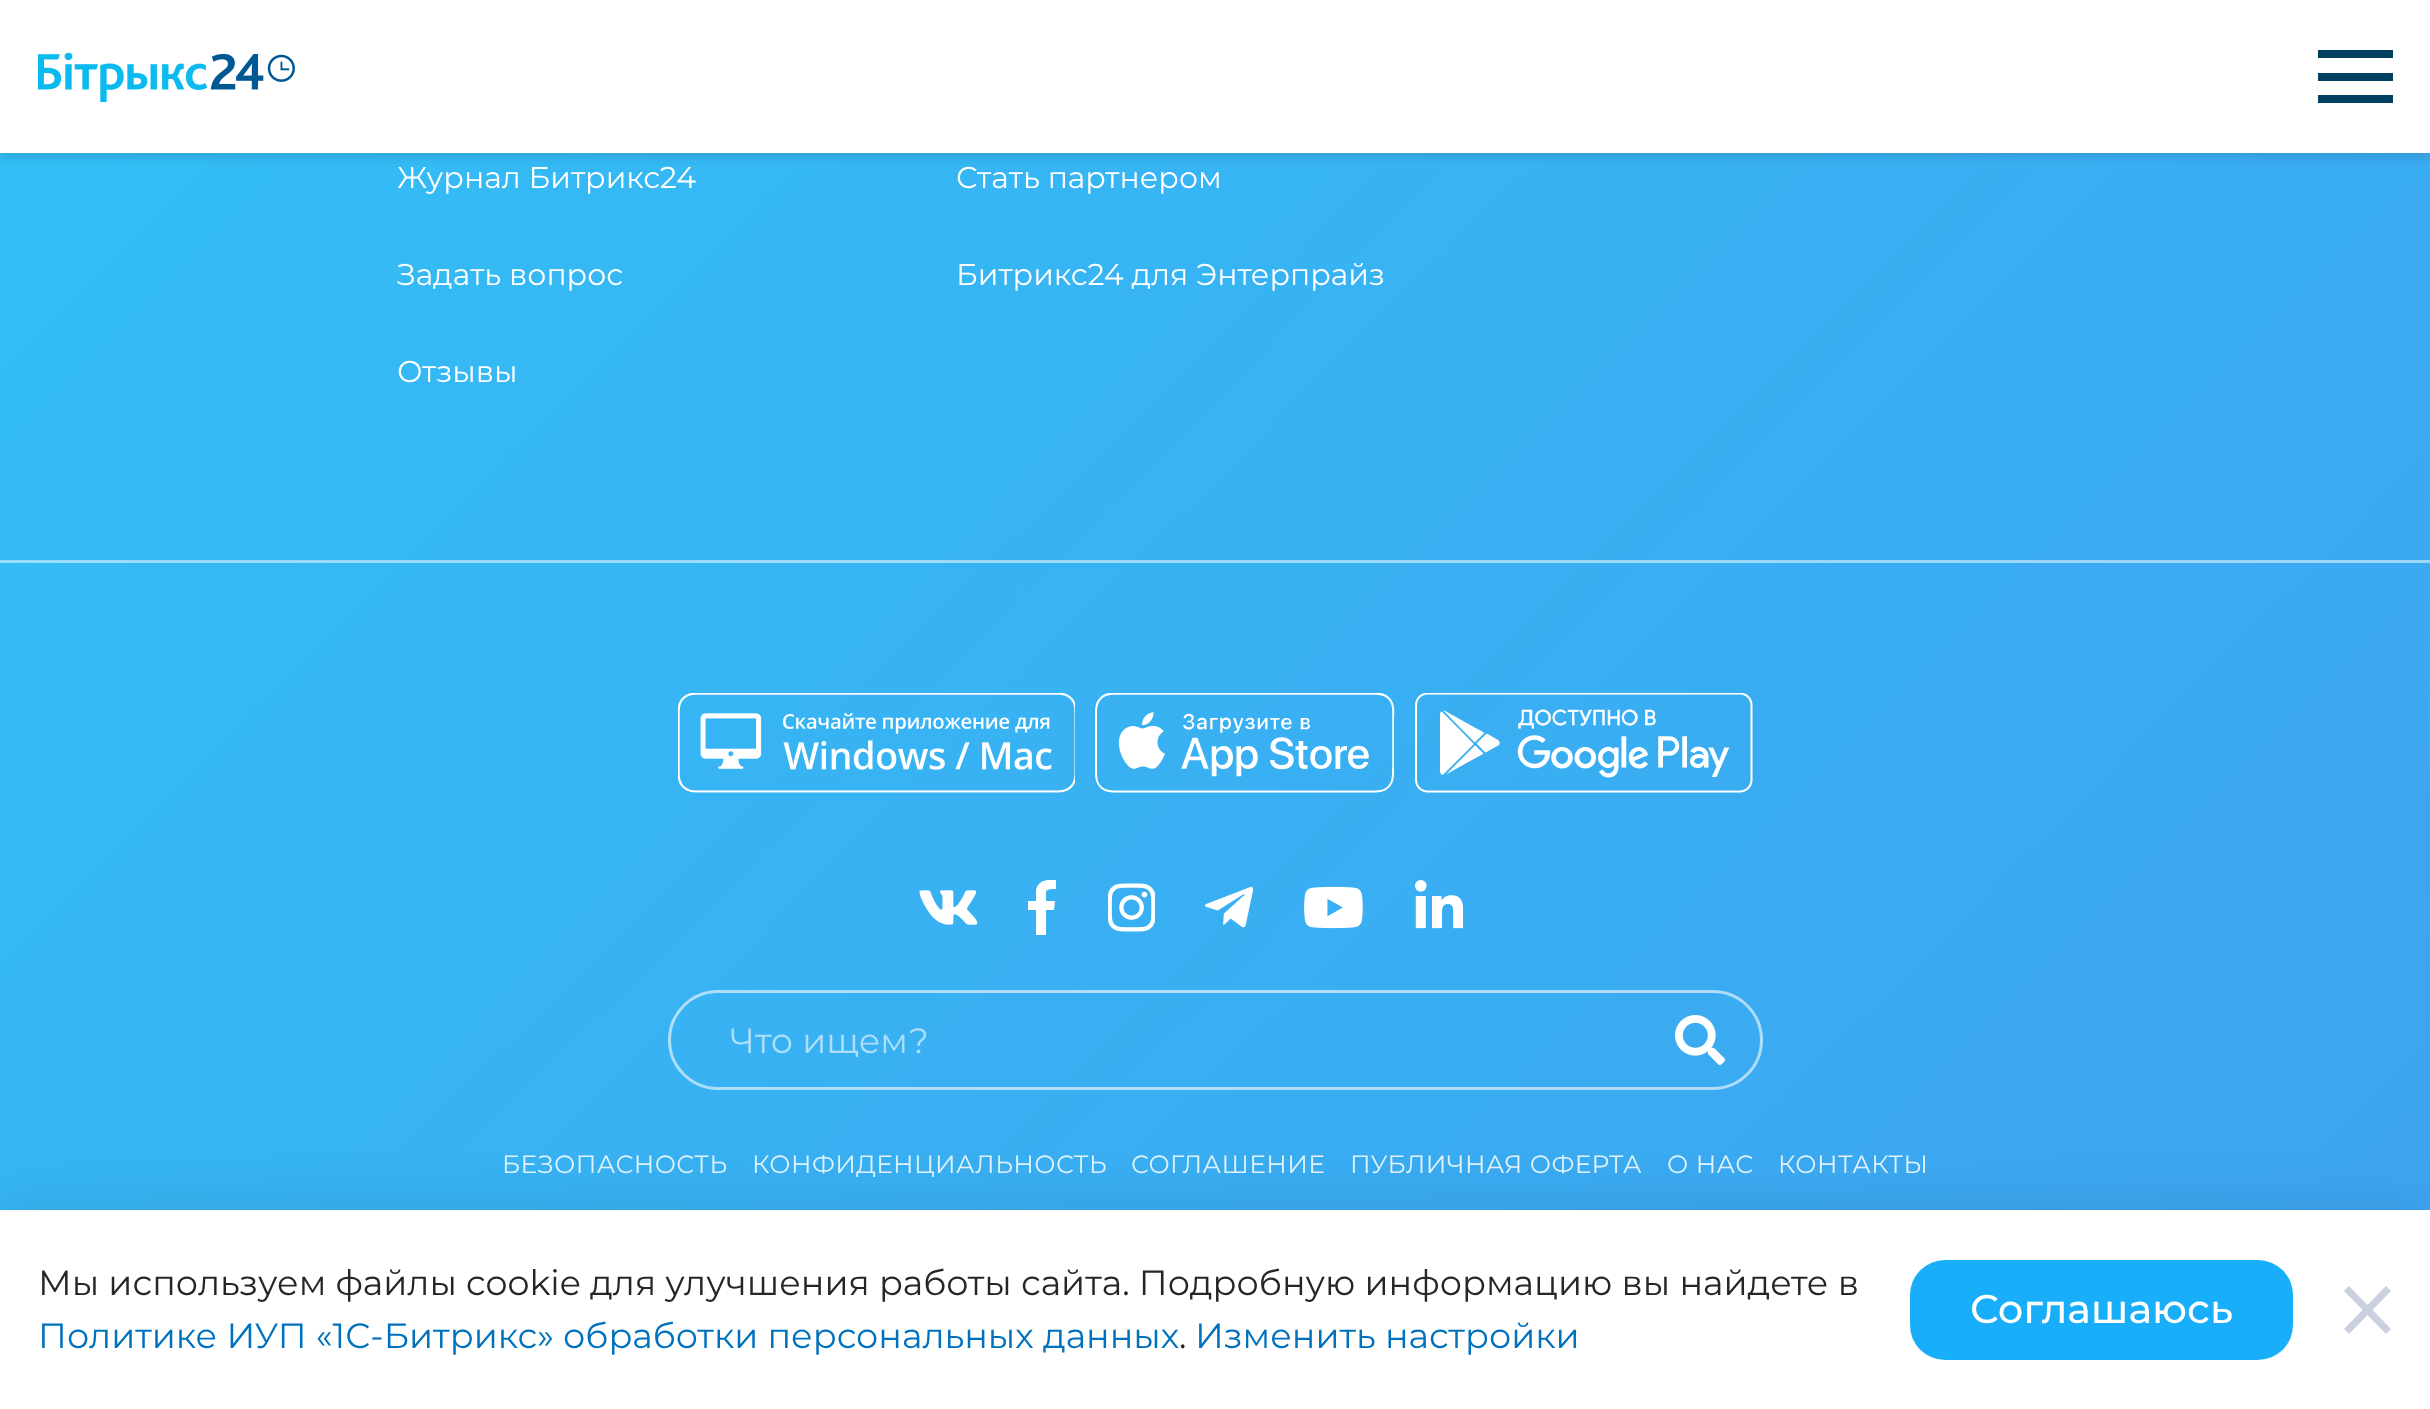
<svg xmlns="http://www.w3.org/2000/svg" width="2430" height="1409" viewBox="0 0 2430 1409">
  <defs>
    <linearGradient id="g1" gradientUnits="userSpaceOnUse" x1="-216" y1="-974" x2="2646" y2="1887"><stop offset="0" stop-color="rgb(47,199,247)"/><stop offset="1" stop-color="rgb(64,158,239)"/></linearGradient>
    <linearGradient id="g2" gradientUnits="userSpaceOnUse" x1="-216" y1="-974" x2="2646" y2="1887"><stop offset="0" stop-color="rgb(151,227,251)"/><stop offset="1" stop-color="rgb(160,207,247)"/></linearGradient>
    <clipPath id="clip1"><rect x="1028" y="880" width="30" height="55"/></clipPath>
  </defs>
  <rect width="100%" height="100%" fill="rgb(255,255,255)"/>
  <rect x="0" y="153" width="2430" height="1057" fill="url(#g1)"/>
  <rect x="0" y="5" width="2430" height="153" fill="rgba(0,0,0,0.1)" filter="blur(4px)"/>
  <rect x="0" y="0" width="2430" height="153" fill="rgb(255,255,255)"/>
  <image x="38" y="53" width="257" height="50" href="pic1.png"/>
  <rect x="2318" y="50" width="75" height="8" fill="rgb(0,65,97)"/>
  <rect x="2318" y="73" width="75" height="8" fill="rgb(0,65,97)"/>
  <rect x="2318" y="95" width="75" height="8" fill="rgb(0,65,97)"/>
  <rect x="0" y="560" width="2430" height="3" fill="url(#g2)"/>
  <g font-family="Montserrat" font-size="30" fill="rgb(255,255,255)">
    <text x="397" y="188">Журнал Битрикс24</text>
    <text x="397" y="285">Задать вопрос</text>
    <text x="397" y="382">Отзывы</text>
    <text x="956" y="188">Стать партнером</text>
    <text x="956" y="285">Битрикс24 для Энтерпрайз</text>
  </g>
  <image x="678" y="693" width="397" height="100" href="pic2.png"/>
  <image x="1095" y="693" width="300" height="100" href="pic3.png"/>
  <image x="1415" y="693" width="338" height="100" href="pic4.png"/>
  <image x="919" y="890" width="59" height="35" href="pic5.png"/>
  <g clip-path="url(#clip1)">
    <path d="M1036 935V910H1028V901H1036V890C1038 880 1048 879 1056 880V889C1044 889 1046 890 1046 901H1055L1054 910H1046V935" fill="rgb(255,255,255)"/>
  </g>
  <image x="1108" y="883" width="47" height="49" href="pic6.png"/>
  <image x="1205" y="886" width="48" height="42" href="pic7.png"/>
  <image x="1304" y="886" width="59" height="43" href="pic8.png"/>
  <image x="1415" y="880" width="48" height="49" href="pic9.png"/>
  <rect x="669.5" y="991.5" width="1092" height="97" rx="48.5" fill="none" stroke="rgba(255,255,255,0.59)" stroke-width="3"/>
  <text x="730" y="1053" font-family="Montserrat" font-size="35" fill="rgb(174,223,250)">Что ищем?</text>
  <image x="1675" y="1015" width="50" height="50" href="pic10.png"/>
  <g font-family="Montserrat" font-size="25" letter-spacing="0.4" fill="rgb(225,243,253)">
    <text x="502" y="1173">БЕЗОПАСНОСТЬ</text>
    <text x="752" y="1173">КОНФИДЕНЦИАЛЬНОСТЬ</text>
    <text x="1131" y="1173">СОГЛАШЕНИЕ</text>
    <text x="1350" y="1173">ПУБЛИЧНАЯ ОФЕРТА</text>
    <text x="1667" y="1173">О НАС</text>
    <text x="1778" y="1173">КОНТАКТЫ</text>
  </g>
  <rect x="0" y="1210" width="2430" height="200" fill="rgba(0,0,0,0.1)" filter="blur(30px)"/>
  <rect x="0" y="1210" width="2430" height="199" fill="rgb(255,255,255)"/>
  <text x="38" y="1295" font-family="Montserrat" font-size="35" fill="rgb(38,38,38)">Мы используем файлы cookie для улучшения работы сайта. Подробную информацию вы найдете в</text>
  <text x="38" y="1348" font-family="Montserrat" font-size="35" fill="rgb(0,113,189)">Политике ИУП «1С-Битрикс» обработки персональных данных</text>
  <text x="1179" y="1348" font-family="Montserrat" font-size="35" fill="rgb(38,38,38)">.</text>
  <text x="1195" y="1348" font-family="Montserrat" font-size="35" fill="rgb(0,113,189)">Изменить настройки</text>
  <rect x="1910" y="1260" width="383" height="100" rx="35" fill="rgb(25,174,249)"/>
  <text x="1970" y="1323" font-family="Montserrat" font-size="40" font-weight="500" fill="rgb(255,255,255)">Соглашаюсь</text>
  <path d="M2349 1286L2391 1329L2386 1334L2344 1291Z" fill="rgb(202,208,222)"/>
  <path d="M2344 1329L2386 1286L2391 1291L2349 1334Z" fill="rgb(202,208,222)"/>
</svg>
